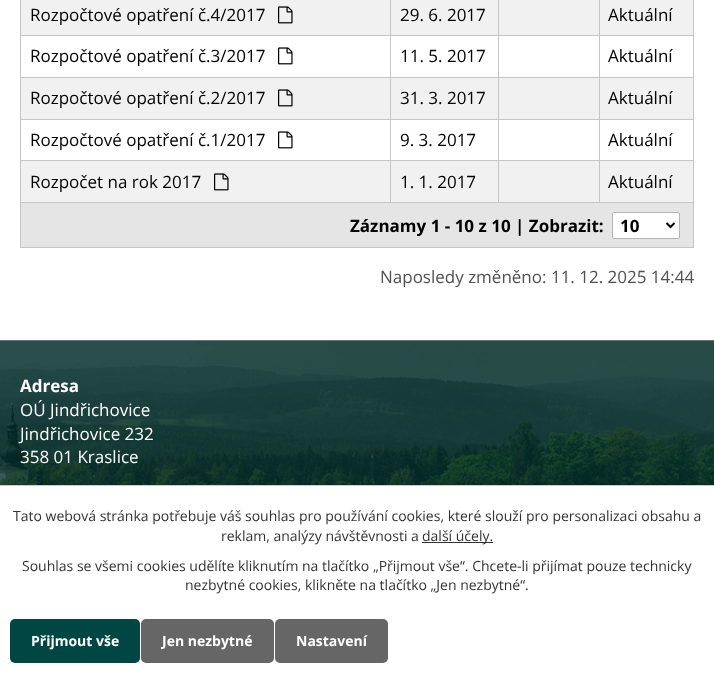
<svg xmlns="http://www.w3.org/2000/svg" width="714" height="687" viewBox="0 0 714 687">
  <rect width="100%" height="100%" fill="rgb(255,255,255)"/>
  <rect x="21" y="0" width="672" height="35" fill="rgb(241,241,241)"/>
  <text x="30" y="21" font-family="Open Sans" font-size="17" fill="rgb(0,0,0)">Rozpočtové opatření č.4/2017</text>
  <image x="278" y="6" width="15" height="18" href="pic1.png"/>
  <rect x="599" y="35" width="95" height="1" fill="rgb(197,197,197)"/>
  <rect x="599" y="77" width="95" height="1" fill="rgb(197,197,197)"/>
  <rect x="21" y="78" width="672" height="41" fill="rgb(241,241,241)"/>
  <rect x="599" y="119" width="95" height="1" fill="rgb(197,197,197)"/>
  <rect x="599" y="160" width="95" height="1" fill="rgb(197,197,197)"/>
  <rect x="21" y="161" width="672" height="41" fill="rgb(241,241,241)"/>
  <rect x="693" y="160" width="1" height="43" fill="rgb(197,197,197)"/>
  <rect x="599" y="202" width="95" height="1" fill="rgb(197,197,197)"/>
  <rect x="599" y="160" width="1" height="43" fill="rgb(197,197,197)"/>
  <rect x="498" y="160" width="102" height="1" fill="rgb(197,197,197)"/>
  <rect x="599" y="119" width="1" height="42" fill="rgb(197,197,197)"/>
  <rect x="498" y="119" width="102" height="1" fill="rgb(197,197,197)"/>
  <rect x="599" y="77" width="1" height="43" fill="rgb(197,197,197)"/>
  <rect x="498" y="77" width="102" height="1" fill="rgb(197,197,197)"/>
  <rect x="599" y="35" width="1" height="43" fill="rgb(197,197,197)"/>
  <rect x="498" y="35" width="102" height="1" fill="rgb(197,197,197)"/>
  <rect x="498" y="202" width="102" height="1" fill="rgb(197,197,197)"/>
  <rect x="498" y="160" width="1" height="43" fill="rgb(197,197,197)"/>
  <rect x="390" y="160" width="109" height="1" fill="rgb(197,197,197)"/>
  <rect x="498" y="119" width="1" height="42" fill="rgb(197,197,197)"/>
  <rect x="390" y="119" width="109" height="1" fill="rgb(197,197,197)"/>
  <rect x="498" y="77" width="1" height="43" fill="rgb(197,197,197)"/>
  <rect x="390" y="77" width="109" height="1" fill="rgb(197,197,197)"/>
  <rect x="498" y="35" width="1" height="43" fill="rgb(197,197,197)"/>
  <rect x="390" y="35" width="109" height="1" fill="rgb(197,197,197)"/>
  <rect x="390" y="202" width="109" height="1" fill="rgb(197,197,197)"/>
  <rect x="390" y="160" width="1" height="43" fill="rgb(197,197,197)"/>
  <rect x="20" y="160" width="371" height="1" fill="rgb(197,197,197)"/>
  <rect x="390" y="119" width="1" height="42" fill="rgb(197,197,197)"/>
  <rect x="20" y="119" width="371" height="1" fill="rgb(197,197,197)"/>
  <rect x="390" y="77" width="1" height="43" fill="rgb(197,197,197)"/>
  <rect x="20" y="77" width="371" height="1" fill="rgb(197,197,197)"/>
  <rect x="390" y="35" width="1" height="43" fill="rgb(197,197,197)"/>
  <rect x="20" y="35" width="371" height="1" fill="rgb(197,197,197)"/>
  <rect x="390" y="0" width="1" height="36" fill="rgb(197,197,197)"/>
  <text x="400" y="21" font-family="Open Sans" font-size="17" fill="rgb(0,0,0)">29. 6. 2017</text>
  <rect x="498" y="0" width="1" height="36" fill="rgb(197,197,197)"/>
  <rect x="599" y="0" width="1" height="36" fill="rgb(197,197,197)"/>
  <text x="608" y="21" font-family="Open Sans" font-size="17" fill="rgb(0,0,0)">Aktuální</text>
  <rect x="20" y="202" width="371" height="1" fill="rgb(197,197,197)"/>
  <rect x="20" y="160" width="1" height="43" fill="rgb(197,197,197)"/>
  <rect x="20" y="119" width="1" height="42" fill="rgb(197,197,197)"/>
  <rect x="20" y="77" width="1" height="43" fill="rgb(197,197,197)"/>
  <rect x="20" y="0" width="1" height="78" fill="rgb(197,197,197)"/>
  <text x="30" y="62" font-family="Open Sans" font-size="17" fill="rgb(0,0,0)">Rozpočtové opatření č.3/2017</text>
  <image x="278" y="47" width="15" height="18" href="pic2.png"/>
  <text x="400" y="62" font-family="Open Sans" font-size="17" fill="rgb(0,0,0)">11. 5. 2017</text>
  <rect x="693" y="119" width="1" height="42" fill="rgb(197,197,197)"/>
  <rect x="693" y="77" width="1" height="43" fill="rgb(197,197,197)"/>
  <rect x="693" y="0" width="1" height="78" fill="rgb(197,197,197)"/>
  <g font-family="Open Sans" font-size="17" fill="rgb(0,0,0)">
    <text x="608" y="62">Aktuální</text>
    <text x="30" y="104">Rozpočtové opatření č.2/2017</text>
  </g>
  <image x="278" y="89" width="15" height="18" href="pic1.png"/>
  <g font-family="Open Sans" font-size="17" fill="rgb(0,0,0)">
    <text x="400" y="104">31. 3. 2017</text>
    <text x="608" y="104">Aktuální</text>
    <text x="30" y="146">Rozpočtové opatření č.1/2017</text>
  </g>
  <image x="278" y="131" width="15" height="18" href="pic2.png"/>
  <g font-family="Open Sans" font-size="17" fill="rgb(0,0,0)">
    <text x="400" y="146">9. 3. 2017</text>
    <text x="608" y="146">Aktuální</text>
    <text x="30" y="188">Rozpočet na rok 2017</text>
  </g>
  <image x="214" y="173" width="15" height="18" href="pic1.png"/>
  <g font-family="Open Sans" font-size="17" fill="rgb(0,0,0)">
    <text x="400" y="188">1. 1. 2017</text>
    <text x="608" y="188">Aktuální</text>
  </g>
  <rect x="21" y="203" width="672" height="44" fill="rgb(229,229,229)"/>
  <rect x="693" y="202" width="1" height="46" fill="rgb(197,197,197)"/>
  <rect x="20" y="247" width="674" height="1" fill="rgb(197,197,197)"/>
  <rect x="20" y="202" width="1" height="46" fill="rgb(197,197,197)"/>
  <text x="350" y="232" font-family="Open Sans" font-size="17" font-weight="bold" fill="rgb(0,0,0)">Záznamy 1 - 10 z 10 | Zobrazit:</text>
  <rect x="612.5" y="212.5" width="67" height="26" rx="1.5" fill="rgb(255,255,255)" stroke="rgb(181,181,181)"/>
  <path d="M666.5 223L670.5 227L674.5 223" fill="none" stroke="rgb(0,0,0)" stroke-width="2"/>
  <text x="620" y="232" font-family="Open Sans" font-size="17" font-weight="bold" fill="rgb(0,0,0)">10</text>
  <text x="380" y="283" font-family="Open Sans" font-size="17" fill="rgb(81,81,81)">Naposledy změněno: 11. 12. 2025 14:44</text>
  <image x="0" y="340" width="714" height="145" href="pic3.png"/>
  <text x="20" y="392" font-family="Open Sans" font-size="17" font-weight="bold" fill="rgb(255,255,255)">Adresa</text>
  <g font-family="Open Sans" font-size="17" fill="rgb(255,255,255)">
    <text>
      <tspan x="20" y="416">OÚ Jindřichovice</tspan>
      <tspan x="20" y="440">Jindřichovice 232</tspan>
      <tspan x="20" y="463">358 01 Kraslice</tspan>
    </text>
  </g>
  <rect x="0" y="485" width="714" height="202" fill="rgba(0,0,0,0.2)" filter="blur(2.5px)"/>
  <rect x="0" y="486" width="714" height="201" fill="rgb(255,255,255)"/>
  <rect x="0" y="485" width="714" height="1" fill="rgb(204,204,204)"/>
  <g font-family="Open Sans" font-size="14" fill="rgb(51,51,51)">
    <text x="13" y="521">Tato webová stránka potřebuje váš souhlas pro používání cookies, které slouží pro personalizaci obsahu a</text>
    <text x="221" y="541">reklam, analýzy návštěvnosti a</text>
  </g>
  <rect x="422" y="542" width="71" height="1" fill="rgb(51,51,51)"/>
  <g font-family="Open Sans" font-size="14" fill="rgb(51,51,51)">
    <text x="422" y="541">další účely.</text>
    <text x="22" y="571">Souhlas se všemi cookies udělíte kliknutím na tlačítko „Přijmout vše“. Chcete-li přijímat pouze technicky</text>
    <text x="185" y="590">nezbytné cookies, klikněte na tlačítko „Jen nezbytné“.</text>
  </g>
  <rect x="10" y="619" width="130" height="44" rx="5" fill="rgb(0,71,67)"/>
  <text x="31" y="646" font-family="Open Sans" font-size="14" font-weight="bold" fill="rgb(255,255,255)">Přijmout vše</text>
  <rect x="141" y="619" width="133" height="44" rx="5" fill="rgb(102,102,102)"/>
  <text x="162" y="646" font-family="Open Sans" font-size="14" font-weight="bold" fill="rgb(255,255,255)">Jen nezbytné</text>
  <rect x="275" y="619" width="113" height="44" rx="5" fill="rgb(102,102,102)"/>
  <text x="296" y="646" font-family="Open Sans" font-size="14" font-weight="bold" fill="rgb(255,255,255)">Nastavení</text>
</svg>
